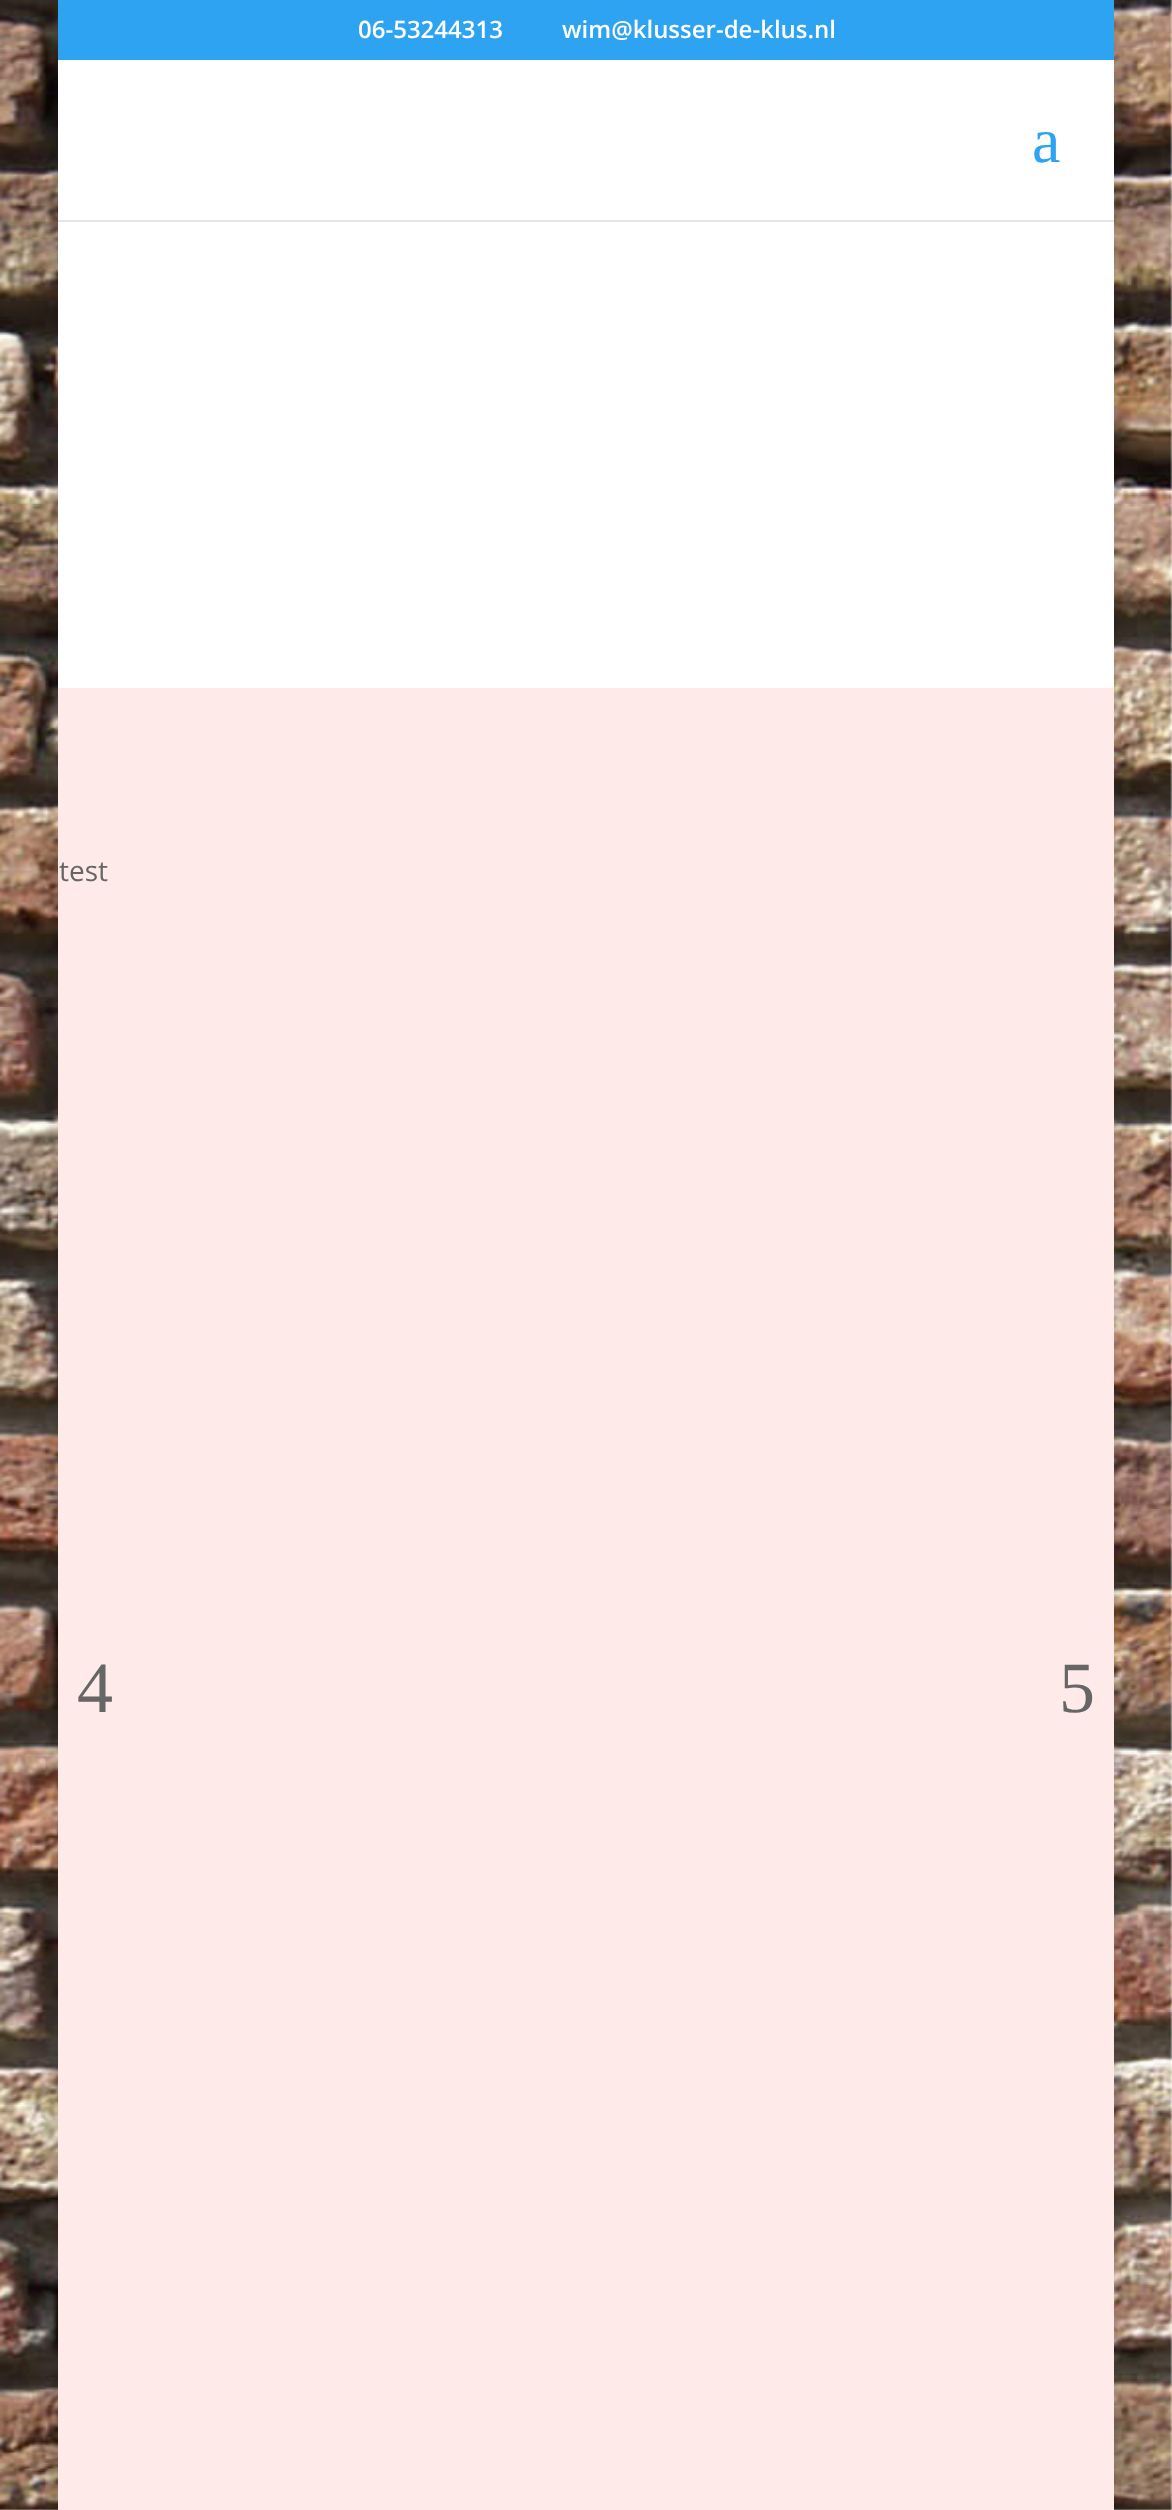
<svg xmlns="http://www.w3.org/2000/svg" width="1172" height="2510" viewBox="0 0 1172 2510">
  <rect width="100%" height="100%" fill="rgb(255,255,255)"/>
  <image x="0" y="0" width="1172" height="2510" href="pic1.png"/>
  <rect x="58" y="0" width="1056" height="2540" fill="rgba(0,0,0,0.2)" filter="blur(10px)"/>
  <rect x="58" y="0" width="1056" height="60" fill="rgb(46,163,242)"/>
  <g font-family="Open Sans" font-size="24" font-weight="600" fill="rgb(255,255,255)">
    <text x="358" y="38">06-53244313</text>
    <text x="562" y="38">wim@klusser-de-klus.nl</text>
  </g>
  <rect x="58" y="220" width="1056" height="2" fill="rgb(230,230,230)"/>
  <rect x="58" y="60" width="1056" height="160" fill="rgb(255,255,255)"/>
  <text x="1032" y="162" font-family="Liberation Serif" font-size="64" fill="rgb(46,163,242)">a</text>
  <rect x="58" y="222" width="1056" height="466" fill="rgb(255,255,255)"/>
  <rect x="58" y="688" width="1056" height="1822" fill="rgb(255,234,234)"/>
  <text x="59" y="881" font-family="Open Sans" font-size="28" fill="rgb(102,102,102)">test</text>
  <g font-family="Liberation Serif" font-size="72" fill="rgb(102,102,102)">
    <text x="77" y="1712">4</text>
    <text x="1059" y="1712">5</text>
  </g>
</svg>
